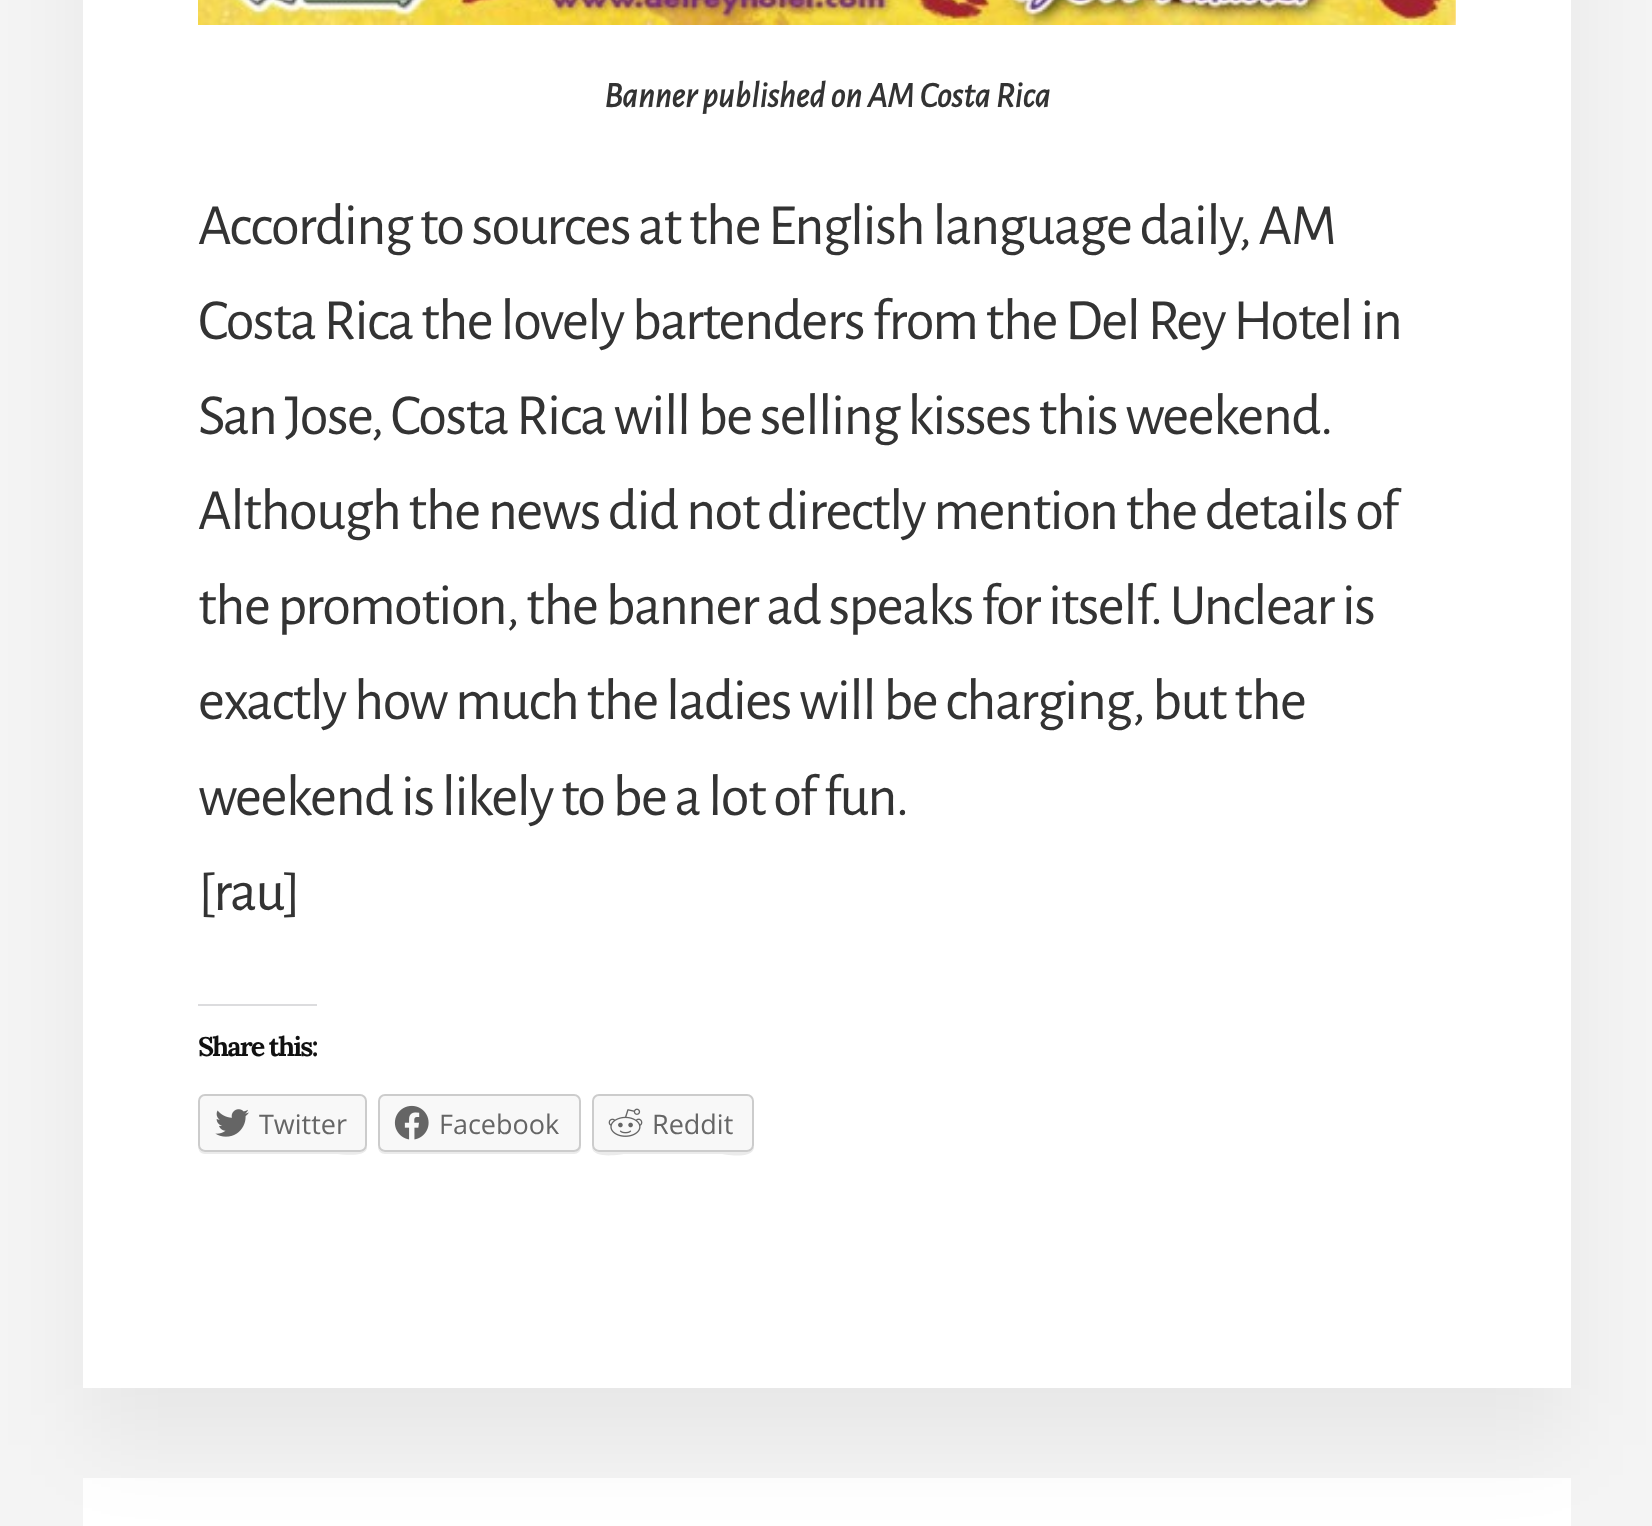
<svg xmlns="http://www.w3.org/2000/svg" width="1652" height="1526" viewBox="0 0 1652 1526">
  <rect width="100%" height="100%" fill="rgb(244,244,244)"/>
  <rect x="83" y="1478" width="1488" height="48" fill="rgb(255,255,255)"/>
  <rect x="83" y="-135" width="1488" height="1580" fill="rgba(0,0,0,0.05)" filter="blur(45px)"/>
  <rect x="83" y="0" width="1488" height="1388" fill="rgb(255,255,255)"/>
  <image x="198" y="0" width="1258" height="25" href="pic1.png"/>
  <text x="604" y="107" font-family="Alegreya Sans" font-size="36" font-weight="bold" font-style="italic" fill="rgb(51,51,51)">Banner published on AM Costa Rica</text>
  <g font-family="Alegreya Sans" font-size="58.5" letter-spacing="-1.57" fill="rgb(51,51,51)">
    <text>
      <tspan x="198" y="244">According to sources at the English language daily, AM</tspan>
      <tspan x="198" y="339">Costa Rica the lovely bartenders from the Del Rey Hotel in</tspan>
      <tspan x="198" y="434">San Jose, Costa Rica will be selling kisses this weekend.</tspan>
      <tspan x="198" y="529">Although the news did not directly mention the details of</tspan>
      <tspan x="198" y="624">the promotion, the banner ad speaks for itself. Unclear is</tspan>
      <tspan x="198" y="719">exactly how much the ladies will be charging, but the</tspan>
      <tspan x="198" y="815">weekend is likely to be a lot of fun.</tspan>
      <tspan x="198" y="910">[rau]</tspan>
    </text>
  </g>
  <rect x="198" y="1004" width="119" height="2" fill="rgb(220,220,222)"/>
  <text x="198" y="1056" font-family="Lora" font-size="27" font-weight="bold" letter-spacing="-1.75" fill="rgb(17,17,17)">Share this:</text>
  <path d="M198 1145C198 1150 200 1154 205 1154H334C344 1154 365 1158 367 1148V1101V1145C367 1149 364 1152 360 1152H205C201 1152 198 1149 198 1145Z" fill="rgb(235,235,235)"/>
  <rect x="199" y="1095" width="167" height="56" rx="6" fill="rgb(248,248,248)" stroke="rgb(204,204,204)" stroke-width="2"/>
  <image x="215" y="1109" width="34" height="28" href="pic2.png"/>
  <text x="259" y="1134" font-family="Open Sans" font-size="27" fill="rgb(101,101,101)">Twitter</text>
  <path d="M378 1145V1147C378 1151 381 1154 385 1154H574C578 1154 581 1151 581 1147V1103L580 1100V1145C580 1149 577 1152 574 1152H385C381 1152 378 1149 378 1145Z" fill="rgb(235,235,235)"/>
  <rect x="379" y="1095" width="201" height="56" rx="6" fill="rgb(248,248,248)" stroke="rgb(204,204,204)" stroke-width="2"/>
  <image x="394" y="1105" width="35" height="35" href="pic3.png"/>
  <text x="439" y="1134" font-family="Open Sans" font-size="27" fill="rgb(101,101,101)">Facebook</text>
  <path d="M592 1147C592 1160 623 1154 624 1154H722C722 1154 752 1160 754 1148V1101V1147L752 1150L748 1152H598C596 1152 593 1150 592 1147Z" fill="rgb(235,235,235)"/>
  <rect x="593" y="1095" width="160" height="56" rx="6" fill="rgb(248,248,248)" stroke="rgb(204,204,204)" stroke-width="2"/>
  <image x="608" y="1108" width="35" height="29" href="pic4.png"/>
  <text x="652" y="1134" font-family="Open Sans" font-size="27" fill="rgb(101,101,101)">Reddit</text>
</svg>
